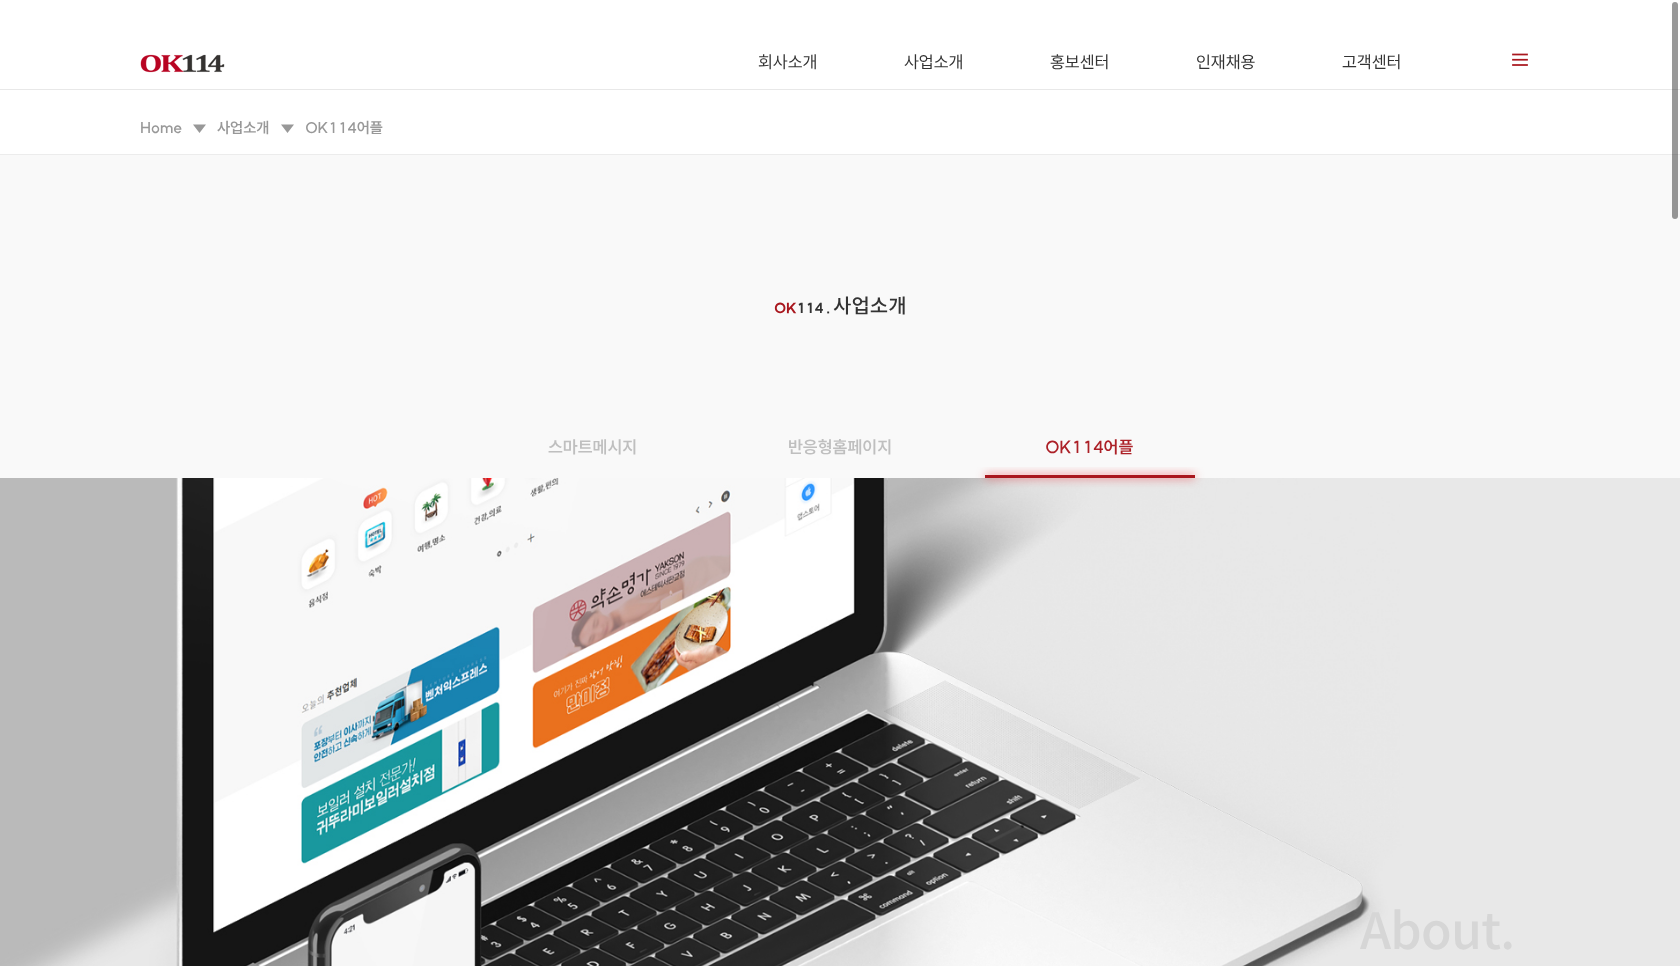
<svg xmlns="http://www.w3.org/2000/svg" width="1680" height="966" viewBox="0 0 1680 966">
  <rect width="100%" height="100%" fill="rgb(255,255,255)"/>
  <rect x="-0.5" y="-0.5" width="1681" height="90" fill="none" stroke="rgb(232,232,232)"/>
  <image x="140" y="54" width="85" height="19" href="pic1.png"/>
  <g font-family="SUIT" font-size="17" fill="rgb(51,51,51)">
    <text x="758" y="68">회사소개</text>
    <text x="904" y="68">사업소개</text>
    <text x="1050" y="68">홍보센터</text>
    <text x="1196" y="68">인재채용</text>
    <text x="1342" y="68">고객센터</text>
  </g>
  <image x="1512" y="53" width="16" height="13" href="pic2.png"/>
  <text x="140" y="133" font-family="SUIT" font-size="15" font-weight="600" fill="rgb(152,152,152)">Home</text>
  <path d="M193 124.5L199.5 133L206 124.5Z" fill="rgb(152,152,152)"/>
  <text x="217" y="133" font-family="SUIT" font-size="15" font-weight="600" fill="rgb(152,152,152)">사업소개</text>
  <path d="M281 124.5L287.5 133L294 124.5Z" fill="rgb(152,152,152)"/>
  <text x="305" y="133" font-family="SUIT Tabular" font-size="15" font-weight="600" fill="rgb(152,152,152)">OK114어플</text>
  <rect x="0" y="154" width="1680" height="1" fill="rgb(236,236,236)"/>
  <rect x="0" y="467" width="1680" height="11" fill="rgb(249,249,249)"/>
  <image x="0" y="478" width="1680" height="488" href="pic3.png"/>
  <rect x="985" y="475" width="210" height="3" fill="rgb(235,67,74)" filter="blur(5px)"/>
  <rect x="0" y="155" width="1680" height="312" fill="rgb(249,249,249)"/>
  <text x="774" y="313" font-family="SUIT" font-size="14" font-weight="800" fill="rgb(169,23,30)">OK</text>
  <text x="797" y="313" font-family="SUIT Tabular" font-size="14" font-weight="800" fill="rgb(51,51,51)">114 .</text>
  <text x="833" y="313" font-family="Noto Sans KR" font-size="20" font-weight="500" fill="rgb(51,51,51)">사업소개</text>
  <g font-family="SUIT" font-size="17" font-weight="600" fill="rgb(191,191,191)">
    <text x="548" y="453">스마트메시지</text>
    <text x="788" y="453">반응형홈페이지</text>
  </g>
  <text x="1045" y="453" font-family="SUIT Tabular" font-size="17" font-weight="600" fill="rgb(172,32,39)">OK114어플</text>
  <rect x="985" y="475" width="210" height="3" fill="rgb(169,23,30)"/>
  <text x="1360" y="949" font-family="Noto Sans KR" font-size="50" font-weight="500" letter-spacing="-0.75" fill="rgb(214,214,214)">About.</text>
  <rect x="1672" y="2" width="6" height="217" rx="3" fill="rgba(0,0,0,0.4)"/>
</svg>
